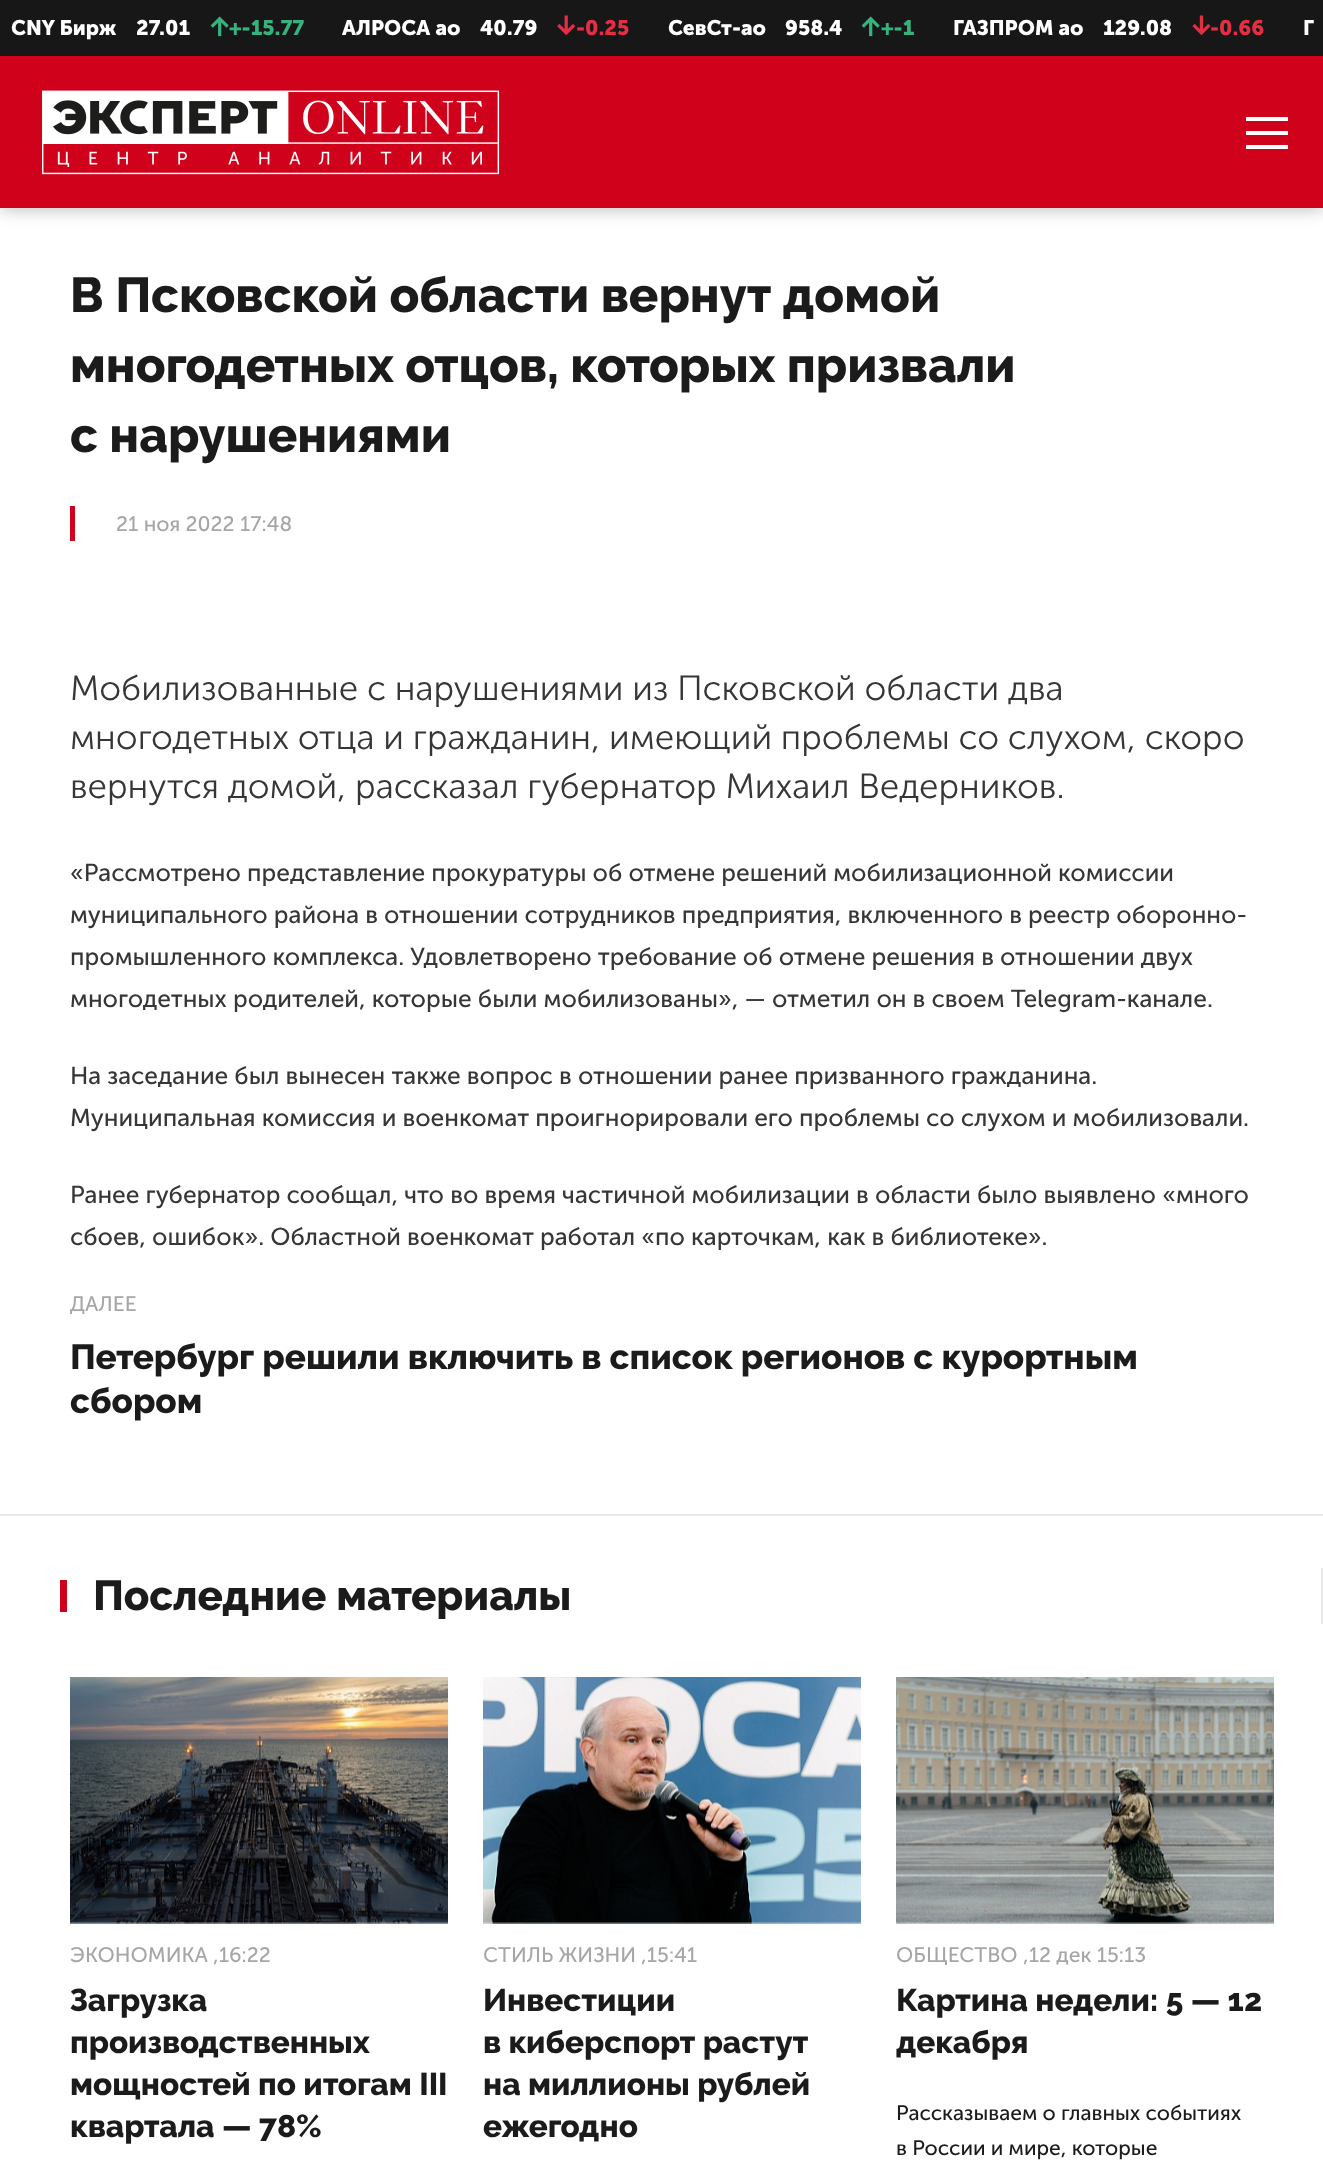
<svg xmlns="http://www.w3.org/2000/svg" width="1323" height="2169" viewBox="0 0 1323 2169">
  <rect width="100%" height="100%" fill="rgb(255,255,255)"/>
  <rect x="0" y="0" width="1323" height="208" fill="rgba(0,0,0,0.3)" filter="blur(9px)"/>
  <rect x="0" y="0" width="1323" height="56" fill="rgb(23,23,23)"/>
  <g font-family="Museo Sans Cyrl" font-size="21" font-weight="bold" fill="rgb(255,255,255)">
    <text x="11" y="35">CNY Бирж</text>
    <text x="136" y="35">27.01</text>
  </g>
  <image x="210" y="16" width="19" height="21" href="pic1.png"/>
  <text x="229" y="35" font-family="Museo Sans Cyrl" font-size="21" font-weight="bold" fill="rgb(54,179,124)">+-15.77</text>
  <g font-family="Museo Sans Cyrl" font-size="21" font-weight="bold" fill="rgb(255,255,255)">
    <text x="342" y="35">АЛРОСА ао</text>
    <text x="480" y="35">40.79</text>
  </g>
  <image x="557" y="15" width="19" height="21" href="pic2.png"/>
  <text x="576" y="35" font-family="Museo Sans Cyrl" font-size="21" font-weight="bold" fill="rgb(229,46,68)">-0.25</text>
  <g font-family="Museo Sans Cyrl" font-size="21" font-weight="bold" fill="rgb(255,255,255)">
    <text x="668" y="35">СевСт-ао</text>
    <text x="785" y="35">958.4</text>
  </g>
  <image x="861" y="16" width="19" height="21" href="pic1.png"/>
  <text x="881" y="35" font-family="Museo Sans Cyrl" font-size="21" font-weight="bold" fill="rgb(54,179,124)">+-1</text>
  <g font-family="Museo Sans Cyrl" font-size="21" font-weight="bold" fill="rgb(255,255,255)">
    <text x="953" y="35">ГАЗПРОМ ао</text>
    <text x="1103" y="35">129.08</text>
  </g>
  <image x="1192" y="15" width="19" height="21" href="pic3.png"/>
  <text x="1210" y="35" font-family="Museo Sans Cyrl" font-size="21" font-weight="bold" fill="rgb(229,46,68)">-0.66</text>
  <text x="1303" y="35" font-family="Museo Sans Cyrl" font-size="21" font-weight="bold" fill="rgb(255,255,255)">Г</text>
  <rect x="0" y="56" width="1323" height="152" fill="rgb(208,2,27)"/>
  <image x="42" y="90" width="458" height="85" href="pic4.png"/>
  <rect x="1246" y="131" width="42" height="4" fill="rgb(255,255,255)"/>
  <rect x="1246" y="117" width="42" height="4" fill="rgb(255,255,255)"/>
  <rect x="1246" y="145" width="42" height="4" fill="rgb(255,255,255)"/>
  <rect x="0" y="1514" width="1323" height="2" fill="rgb(232,232,232)"/>
  <g font-family="Raleway" font-size="49" font-weight="800" fill="rgb(27,27,27)">
    <text>
      <tspan x="70" y="312">В Псковской области вернут домой</tspan>
      <tspan x="70" y="382">многодетных отцов, которых призвали</tspan>
      <tspan x="70" y="452">с нарушениями</tspan>
    </text>
  </g>
  <rect x="70" y="506" width="5" height="35" fill="rgb(208,2,27)"/>
  <text x="116" y="531" font-family="Museo Sans Cyrl" font-size="21" fill="rgb(166,166,166)">21 ноя 2022 17:48</text>
  <g font-family="Museo Sans Cyrl" font-size="35" font-weight="300" fill="rgb(54,54,54)">
    <text>
      <tspan x="70" y="700">Мобилизованные с нарушениями из Псковской области два</tspan>
      <tspan x="70" y="749">многодетных отца и гражданин, имеющий проблемы со слухом, скоро</tspan>
      <tspan x="70" y="798">вернутся домой, рассказал губернатор Михаил Ведерников.</tspan>
    </text>
  </g>
  <g font-family="Museo Sans Cyrl" font-size="24.5" fill="rgb(54,54,54)">
    <text>
      <tspan x="70" y="881">«Рассмотрено представление прокуратуры об отмене решений мобилизационной комиссии</tspan>
      <tspan x="70" y="923">муниципального района в отношении сотрудников предприятия, включенного в реестр оборонно-</tspan>
      <tspan x="70" y="965">промышленного комплекса. Удовлетворено требование об отмене решения в отношении двух</tspan>
      <tspan x="70" y="1007">многодетных родителей, которые были мобилизованы», — отметил он в своем Telegram-канале.</tspan>
    </text>
    <text>
      <tspan x="70" y="1084">На заседание был вынесен также вопрос в отношении ранее призванного гражданина.</tspan>
      <tspan x="70" y="1126">Муниципальная комиссия и военкомат проигнорировали его проблемы со слухом и мобилизовали.</tspan>
    </text>
    <text>
      <tspan x="70" y="1203">Ранее губернатор сообщал, что во время частичной мобилизации в области было выявлено «много</tspan>
      <tspan x="70" y="1245">сбоев, ошибок». Областной военкомат работал «по карточкам, как в библиотеке».</tspan>
    </text>
  </g>
  <text x="70" y="1311" font-family="Museo Sans Cyrl" font-size="21" fill="rgb(166,166,166)">ДАЛЕЕ</text>
  <g font-family="Raleway" font-size="35" font-weight="800" fill="rgb(27,27,27)">
    <text>
      <tspan x="70" y="1369">Петербург решили включить в список регионов с курортным</tspan>
      <tspan x="70" y="1413">сбором</tspan>
    </text>
  </g>
  <rect x="1321" y="1568" width="2" height="56" fill="rgb(232,232,232)"/>
  <rect x="60" y="1580" width="7" height="32" fill="rgb(208,2,27)"/>
  <text x="93" y="1610" font-family="Raleway" font-size="42" font-weight="800" fill="rgb(27,27,27)">Последние материалы</text>
  <image x="70" y="1677" width="378" height="247" href="pic5.png"/>
  <g font-family="Museo Sans Cyrl" font-size="21" fill="rgb(166,166,166)">
    <text x="70" y="1962">ЭКОНОМИКА</text>
    <text x="213" y="1962">,16:22</text>
  </g>
  <g font-family="Raleway" font-size="31.5" font-weight="800" fill="rgb(27,27,27)">
    <text>
      <tspan x="70" y="2011">Загрузка</tspan>
      <tspan x="70" y="2053">производственных</tspan>
      <tspan x="70" y="2095">мощностей по итогам III</tspan>
      <tspan x="70" y="2137">квартала — 78%</tspan>
    </text>
  </g>
  <image x="483" y="1677" width="378" height="247" href="pic6.png"/>
  <g font-family="Museo Sans Cyrl" font-size="21" fill="rgb(166,166,166)">
    <text x="483" y="1962">СТИЛЬ ЖИЗНИ</text>
    <text x="641" y="1962">,15:41</text>
  </g>
  <g font-family="Raleway" font-size="31.5" font-weight="800" fill="rgb(27,27,27)">
    <text>
      <tspan x="483" y="2011">Инвестиции</tspan>
      <tspan x="483" y="2053">в киберспорт растут</tspan>
      <tspan x="483" y="2095">на миллионы рублей</tspan>
      <tspan x="483" y="2137">ежегодно</tspan>
    </text>
  </g>
  <image x="896" y="1677" width="378" height="247" href="pic7.png"/>
  <g font-family="Museo Sans Cyrl" font-size="21" fill="rgb(166,166,166)">
    <text x="896" y="1962">ОБЩЕСТВО</text>
    <text x="1023" y="1962">,12 дек 15:13</text>
  </g>
  <g font-family="Raleway" font-size="31.5" font-weight="800" fill="rgb(27,27,27)">
    <text>
      <tspan x="896" y="2011">Картина недели: 5 — 12</tspan>
      <tspan x="896" y="2053">декабря</tspan>
    </text>
  </g>
  <g font-family="Museo Sans Cyrl" font-size="21" fill="rgb(27,27,27)">
    <text>
      <tspan x="896" y="2120">Рассказываем о главных событиях</tspan>
      <tspan x="896" y="2155">в России и мире, которые</tspan>
    </text>
  </g>
</svg>
